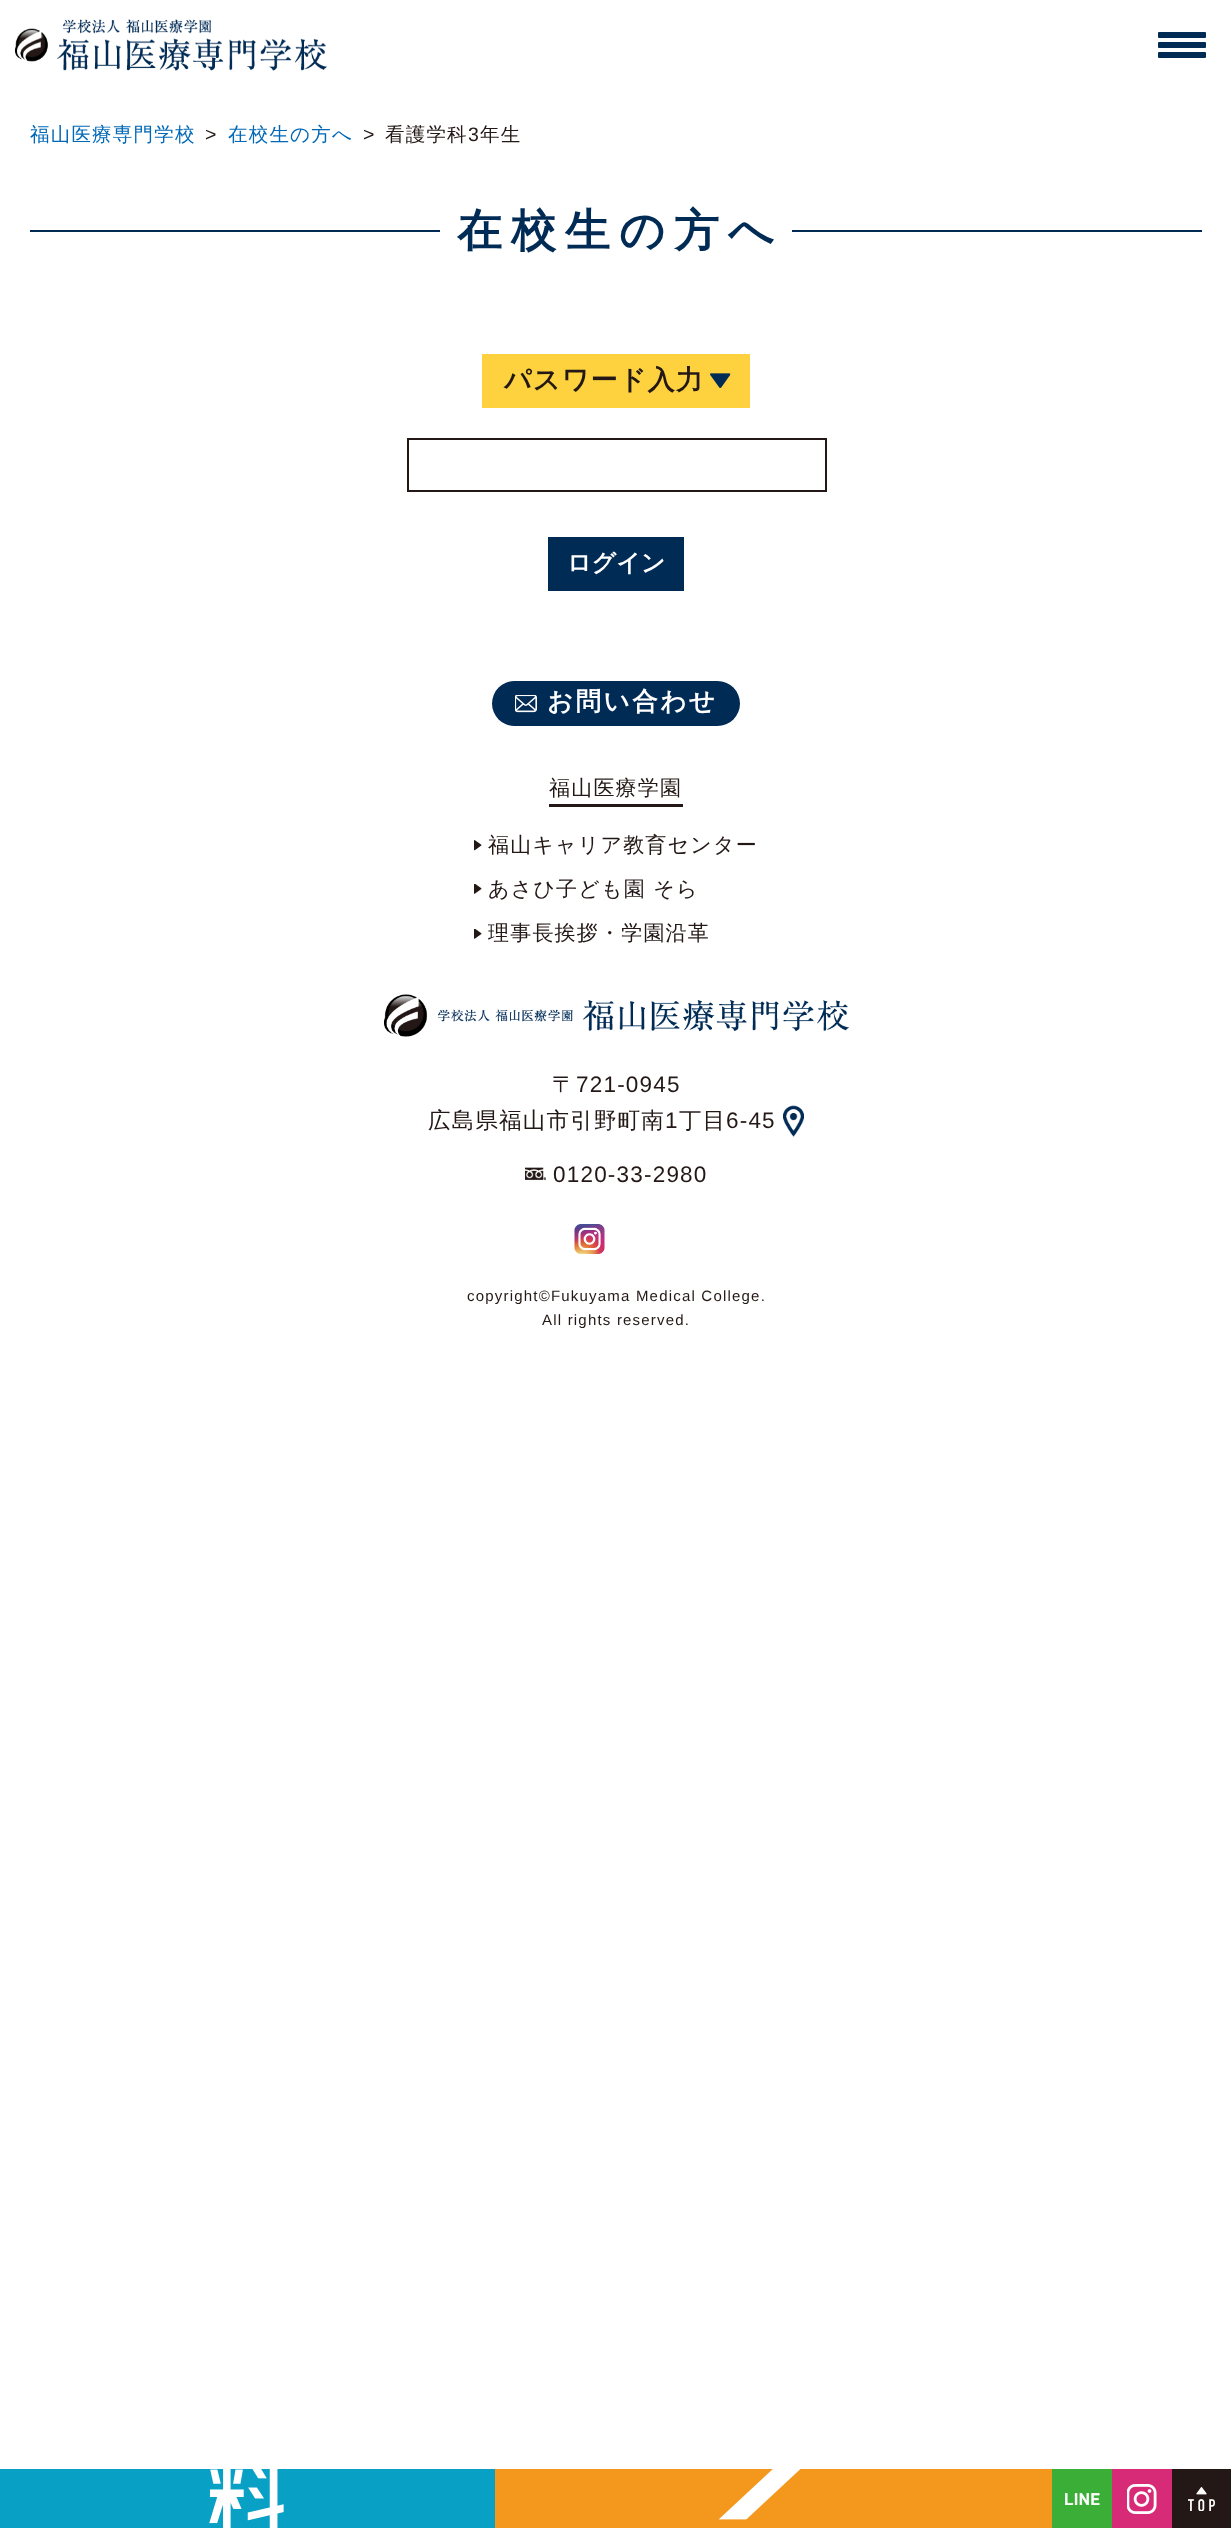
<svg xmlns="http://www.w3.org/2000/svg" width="1231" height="2528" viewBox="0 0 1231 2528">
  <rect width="100%" height="100%" fill="rgb(255,255,255)"/>
  <image x="15" y="19" width="312" height="52" href="pic1.png"/>
  <rect x="1158" y="32" width="48" height="6" rx="1" fill="rgb(0,43,85)"/>
  <rect x="1158" y="42" width="48" height="6" rx="1" fill="rgb(0,43,85)"/>
  <rect x="1158" y="52" width="48" height="6" rx="1" fill="rgb(0,43,85)"/>
  <text x="30" y="141" font-family="WenQuanYi Zen Hei" font-size="19.5" font-weight="500" letter-spacing="1.2" fill="rgb(0,104,183)">福山医療専門学校</text>
  <text x="205" y="141" font-family="Liberation Sans" font-size="19.5" letter-spacing="1.2" fill="rgb(35,24,21)">&gt;</text>
  <text x="228" y="141" font-family="WenQuanYi Zen Hei" font-size="19.5" font-weight="500" letter-spacing="1.2" fill="rgb(0,104,183)">在校生の方へ</text>
  <text x="363" y="141" font-family="Liberation Sans" font-size="19.5" letter-spacing="1.2" fill="rgb(35,24,21)">&gt;</text>
  <text x="385" y="141" font-family="WenQuanYi Zen Hei" font-size="19.5" font-weight="500" letter-spacing="1.2" fill="rgb(35,24,21)">看護学科</text>
  <text x="468" y="141" font-family="Liberation Sans" font-size="19.5" letter-spacing="1.2" fill="rgb(35,24,21)">3</text>
  <text x="480" y="141" font-family="WenQuanYi Zen Hei" font-size="19.5" font-weight="500" letter-spacing="1.2" fill="rgb(35,24,21)">年生</text>
  <rect x="30" y="230" width="410" height="2" fill="rgb(0,43,85)"/>
  <text x="457" y="246" font-family="WenQuanYi Zen Hei" font-size="45" font-weight="bold" letter-spacing="9" fill="rgb(0,43,85)">在校生の方へ</text>
  <rect x="792" y="230" width="410" height="2" fill="rgb(0,43,85)"/>
  <rect x="482" y="354" width="268" height="54" fill="rgb(253,210,62)"/>
  <text x="504" y="389" font-family="WenQuanYi Zen Hei" font-size="27" font-weight="bold" letter-spacing="1.2" fill="rgb(35,24,21)">パスワード入力</text>
  <image x="710" y="373" width="21" height="15" href="pic2.png"/>
  <rect x="408" y="439" width="418" height="52" fill="none" stroke="rgb(35,24,21)" stroke-width="2"/>
  <rect x="548" y="537" width="136" height="54" fill="rgb(0,43,85)"/>
  <text x="567" y="571" font-family="WenQuanYi Zen Hei" font-size="24" font-weight="bold" fill="rgb(255,255,255)">ログイン</text>
  <rect x="492" y="681" width="248" height="45" rx="22.5" fill="rgb(0,43,85)"/>
  <image x="515" y="695" width="22" height="18" href="pic3.png"/>
  <text x="547" y="710" font-family="WenQuanYi Zen Hei" font-size="25.5" font-weight="bold" letter-spacing="2.5" fill="rgb(255,255,255)">お問い合わせ</text>
  <rect x="549" y="804" width="134" height="3" fill="rgb(35,24,21)"/>
  <text x="549" y="795" font-family="WenQuanYi Zen Hei" font-size="21" font-weight="500" letter-spacing="1.2" fill="rgb(35,24,21)">福山医療学園</text>
  <image x="474" y="840" width="8" height="11" href="pic4.png"/>
  <text x="488" y="852" font-family="WenQuanYi Zen Hei" font-size="21" font-weight="500" letter-spacing="1.2" fill="rgb(35,24,21)">福山キャリア教育センター</text>
  <image x="474" y="884" width="8" height="10" href="pic5.png"/>
  <text x="488" y="896" font-family="WenQuanYi Zen Hei" font-size="21" font-weight="500" letter-spacing="1.2" fill="rgb(35,24,21)">あさひ子ども園 そら</text>
  <image x="474" y="929" width="8" height="10" href="pic5.png"/>
  <text x="488" y="940" font-family="WenQuanYi Zen Hei" font-size="21" font-weight="500" letter-spacing="1.2" fill="rgb(35,24,21)">理事長挨拶・学園沿革</text>
  <image x="384" y="994" width="465" height="43" href="pic6.png"/>
  <text x="552" y="1092" font-family="WenQuanYi Zen Hei" font-size="22.5" font-weight="500" letter-spacing="1.2" fill="rgb(35,24,21)">〒</text>
  <text x="576" y="1092" font-family="Liberation Sans" font-size="22.5" letter-spacing="1.2" fill="rgb(35,24,21)">721-0945</text>
  <text x="428" y="1128" font-family="WenQuanYi Zen Hei" font-size="22.5" font-weight="500" letter-spacing="1.2" fill="rgb(35,24,21)">広島県福山市引野町南</text>
  <text x="665" y="1128" font-family="Liberation Sans" font-size="22.5" letter-spacing="1.2" fill="rgb(35,24,21)">1</text>
  <text x="679" y="1128" font-family="WenQuanYi Zen Hei" font-size="22.5" font-weight="500" letter-spacing="1.2" fill="rgb(35,24,21)">丁目</text>
  <text x="726" y="1128" font-family="Liberation Sans" font-size="22.5" letter-spacing="1.2" fill="rgb(35,24,21)">6-45</text>
  <image x="783" y="1105" width="21" height="32" href="pic7.png"/>
  <image x="525" y="1167" width="21" height="14" href="pic8.png"/>
  <text x="553" y="1182" font-family="Liberation Sans" font-size="22.5" letter-spacing="1.2" fill="rgb(35,24,21)">0120-33-2980</text>
  <image x="574" y="1224" width="31" height="30" href="pic9.png"/>
  <g font-family="Liberation Sans" font-size="15" letter-spacing="1.2" fill="rgb(35,24,21)">
    <text x="467" y="1301">copyright©Fukuyama Medical College.</text>
    <text x="542" y="1325">All rights reserved.</text>
  </g>
  <rect x="0" y="2469" width="495" height="59" fill="rgb(9,160,197)"/>
  <image x="209" y="2469" width="75" height="59" href="pic10.png"/>
  <rect x="495" y="2469" width="557" height="59" fill="rgb(243,152,28)"/>
  <image x="718" y="2469" width="83" height="51" href="pic11.png"/>
  <rect x="1052" y="2469" width="60" height="59" fill="rgb(58,174,54)"/>
  <image x="1065" y="2493" width="35" height="12" href="pic12.png"/>
  <rect x="1112" y="2469" width="60" height="59" fill="rgb(216,43,119)"/>
  <image x="1127" y="2484" width="30" height="30" href="pic13.png"/>
  <rect x="1172" y="2469" width="59" height="59" fill="rgb(35,24,21)"/>
  <image x="1188" y="2487" width="27" height="24" href="pic14.png"/>
</svg>
